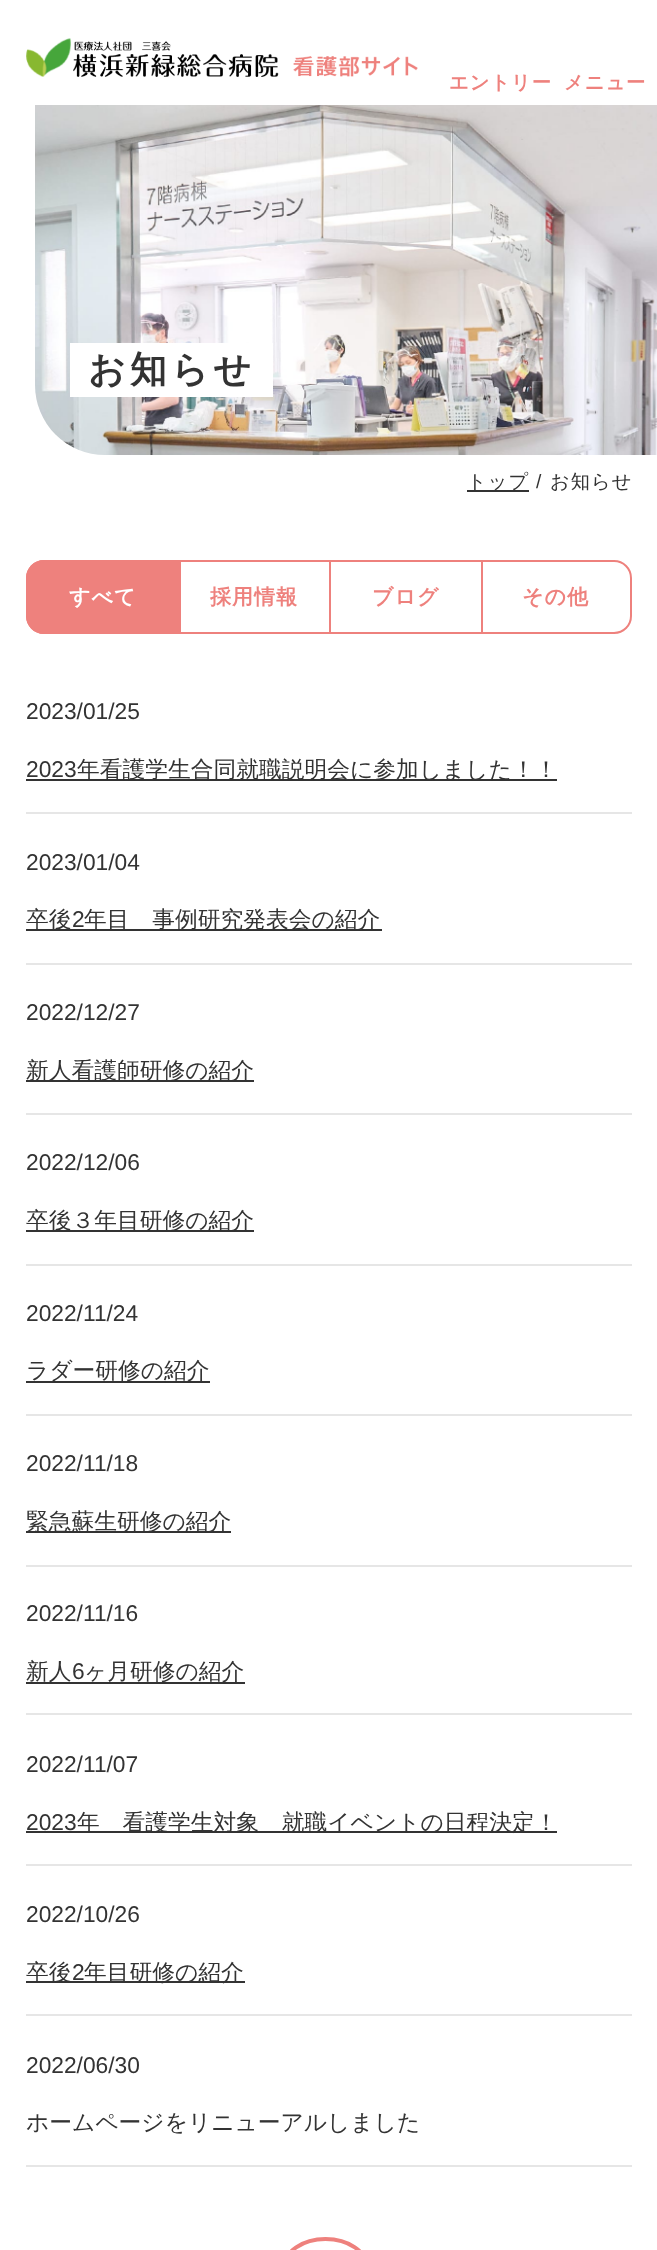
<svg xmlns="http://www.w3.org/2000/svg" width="657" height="2250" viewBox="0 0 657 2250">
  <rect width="100%" height="100%" fill="rgb(255,255,255)"/>
  <image x="26" y="38" width="392" height="39" href="pic1.png"/>
  <g font-family="WenQuanYi Zen Hei" font-size="19.25" font-weight="bold" letter-spacing="1" fill="rgb(238,129,125)">
    <text x="449" y="89">エントリー</text>
    <text x="564" y="89">メニュー</text>
  </g>
  <image x="35" y="105" width="622" height="350" href="pic2.png"/>
  <rect x="70" y="343" width="203" height="54" fill="rgb(255,255,255)"/>
  <text x="88" y="382" font-family="WenQuanYi Zen Hei" font-size="36.75" font-weight="bold" letter-spacing="4.5" fill="rgb(51,51,51)">お知らせ</text>
  <rect x="467" y="490" width="62" height="2" fill="rgb(51,51,51)"/>
  <text x="467" y="488" font-family="WenQuanYi Zen Hei" font-size="19.25" font-weight="500" letter-spacing="1" fill="rgb(51,51,51)">トップ</text>
  <text x="536" y="488" font-family="Liberation Sans" font-size="19.25" letter-spacing="1" fill="rgb(51,51,51)">/</text>
  <text x="550" y="488" font-family="WenQuanYi Zen Hei" font-size="19.25" font-weight="500" letter-spacing="1" fill="rgb(51,51,51)">お知らせ</text>
  <path d="M44 560H179V634H44C34 634 26 626 26 616V578C26 568 34 560 44 560Z" fill="rgb(238,129,125)"/>
  <path d="M44 560H178V634H44C34 634 26 626 26 616V578C26 568 34 560 44 560ZM44 562H178V632H44C35 632 28 625 28 616V578C28 569 35 562 44 562Z" fill="rgb(238,129,125)" fill-rule="evenodd"/>
  <text x="69" y="604" font-family="WenQuanYi Zen Hei" font-size="21" font-weight="bold" letter-spacing="1" fill="rgb(255,255,255)">すべて</text>
  <rect x="179" y="560" width="302" height="2" fill="rgb(238,129,125)"/>
  <rect x="179" y="632" width="302" height="2" fill="rgb(238,129,125)"/>
  <rect x="179" y="560" width="2" height="74" fill="rgb(238,129,125)"/>
  <text x="210" y="604" font-family="WenQuanYi Zen Hei" font-size="21" font-weight="bold" letter-spacing="1" fill="rgb(238,129,125)">採用情報</text>
  <rect x="329" y="560" width="2" height="74" fill="rgb(238,129,125)"/>
  <text x="372" y="604" font-family="WenQuanYi Zen Hei" font-size="21" font-weight="bold" letter-spacing="1" fill="rgb(238,129,125)">ブログ</text>
  <path d="M482 561H614C623.5 561 631 568.5 631 578V616C631 625.5 623.5 633 614 633H482Z" fill="none" stroke="rgb(238,129,125)" stroke-width="2"/>
  <text x="522" y="604" font-family="WenQuanYi Zen Hei" font-size="21" font-weight="bold" letter-spacing="1" fill="rgb(238,129,125)">その他</text>
  <rect x="26" y="812" width="606" height="2" fill="rgb(230,230,230)"/>
  <g font-family="Liberation Sans" font-size="22.75" fill="rgb(51,51,51)">
    <text x="26" y="719">2023/01/25</text>
    <text x="26" y="777">2023</text>
  </g>
  <rect x="26" y="779" width="531" height="2" fill="rgb(51,51,51)"/>
  <text x="77" y="777" font-family="WenQuanYi Zen Hei" font-size="22.75" font-weight="500" fill="rgb(51,51,51)">年看護学生合同就職説明会に参加しました！！</text>
  <rect x="26" y="963" width="606" height="2" fill="rgb(230,230,230)"/>
  <text x="26" y="870" font-family="Liberation Sans" font-size="22.75" fill="rgb(51,51,51)">2023/01/04</text>
  <rect x="26" y="929" width="356" height="2" fill="rgb(51,51,51)"/>
  <text x="26" y="927" font-family="WenQuanYi Zen Hei" font-size="22.75" font-weight="500" fill="rgb(51,51,51)">卒後</text>
  <text x="72" y="927" font-family="Liberation Sans" font-size="22.75" fill="rgb(51,51,51)">2</text>
  <text x="84" y="927" font-family="WenQuanYi Zen Hei" font-size="22.75" font-weight="500" fill="rgb(51,51,51)">年目　事例研究発表会の紹介</text>
  <rect x="26" y="1113" width="606" height="2" fill="rgb(230,230,230)"/>
  <text x="26" y="1020" font-family="Liberation Sans" font-size="22.75" fill="rgb(51,51,51)">2022/12/27</text>
  <rect x="26" y="1080" width="228" height="2" fill="rgb(51,51,51)"/>
  <text x="26" y="1078" font-family="WenQuanYi Zen Hei" font-size="22.75" font-weight="500" fill="rgb(51,51,51)">新人看護師研修の紹介</text>
  <rect x="26" y="1264" width="606" height="2" fill="rgb(230,230,230)"/>
  <text x="26" y="1170" font-family="Liberation Sans" font-size="22.75" fill="rgb(51,51,51)">2022/12/06</text>
  <rect x="26" y="1230" width="228" height="2" fill="rgb(51,51,51)"/>
  <text x="26" y="1228" font-family="WenQuanYi Zen Hei" font-size="22.75" font-weight="500" fill="rgb(51,51,51)">卒後３年目研修の紹介</text>
  <rect x="26" y="1414" width="606" height="2" fill="rgb(230,230,230)"/>
  <text x="26" y="1321" font-family="Liberation Sans" font-size="22.75" fill="rgb(51,51,51)">2022/11/24</text>
  <rect x="26" y="1381" width="184" height="2" fill="rgb(51,51,51)"/>
  <text x="26" y="1378" font-family="WenQuanYi Zen Hei" font-size="22.75" font-weight="500" fill="rgb(51,51,51)">ラダー研修の紹介</text>
  <rect x="26" y="1565" width="606" height="2" fill="rgb(230,230,230)"/>
  <text x="26" y="1471" font-family="Liberation Sans" font-size="22.75" fill="rgb(51,51,51)">2022/11/18</text>
  <rect x="26" y="1531" width="205" height="2" fill="rgb(51,51,51)"/>
  <text x="26" y="1529" font-family="WenQuanYi Zen Hei" font-size="22.75" font-weight="500" fill="rgb(51,51,51)">緊急蘇生研修の紹介</text>
  <rect x="26" y="1713" width="606" height="2" fill="rgb(230,230,230)"/>
  <text x="26" y="1621" font-family="Liberation Sans" font-size="22.75" fill="rgb(51,51,51)">2022/11/16</text>
  <rect x="26" y="1682" width="219" height="2" fill="rgb(51,51,51)"/>
  <text x="26" y="1679" font-family="WenQuanYi Zen Hei" font-size="22.75" font-weight="500" fill="rgb(51,51,51)">新人</text>
  <text x="72" y="1679" font-family="Liberation Sans" font-size="22.75" fill="rgb(51,51,51)">6</text>
  <text x="84" y="1679" font-family="WenQuanYi Zen Hei" font-size="22.75" font-weight="500" fill="rgb(51,51,51)">ヶ月研修の紹介</text>
  <rect x="26" y="1864" width="606" height="2" fill="rgb(230,230,230)"/>
  <g font-family="Liberation Sans" font-size="22.75" fill="rgb(51,51,51)">
    <text x="26" y="1772">2022/11/07</text>
    <text x="26" y="1830">2023</text>
  </g>
  <rect x="26" y="1831" width="531" height="2" fill="rgb(51,51,51)"/>
  <text x="77" y="1830" font-family="WenQuanYi Zen Hei" font-size="22.75" font-weight="500" fill="rgb(51,51,51)">年　看護学生対象　就職イベントの日程決定！</text>
  <rect x="26" y="2014" width="606" height="2" fill="rgb(230,230,230)"/>
  <text x="26" y="1922" font-family="Liberation Sans" font-size="22.75" fill="rgb(51,51,51)">2022/10/26</text>
  <rect x="26" y="1981" width="219" height="2" fill="rgb(51,51,51)"/>
  <text x="26" y="1980" font-family="WenQuanYi Zen Hei" font-size="22.75" font-weight="500" fill="rgb(51,51,51)">卒後</text>
  <text x="72" y="1980" font-family="Liberation Sans" font-size="22.75" fill="rgb(51,51,51)">2</text>
  <text x="84" y="1980" font-family="WenQuanYi Zen Hei" font-size="22.75" font-weight="500" fill="rgb(51,51,51)">年目研修の紹介</text>
  <rect x="26" y="2165" width="606" height="2" fill="rgb(230,230,230)"/>
  <text x="26" y="2073" font-family="Liberation Sans" font-size="22.75" fill="rgb(51,51,51)">2022/06/30</text>
  <text x="26" y="2130" font-family="WenQuanYi Zen Hei" font-size="22.75" font-weight="500" fill="rgb(51,51,51)">ホームページをリニューアルしました</text>
  <rect x="284" y="2239" width="83" height="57" rx="41.5" fill="none" stroke="rgb(238,129,125)" stroke-width="4"/>
</svg>
